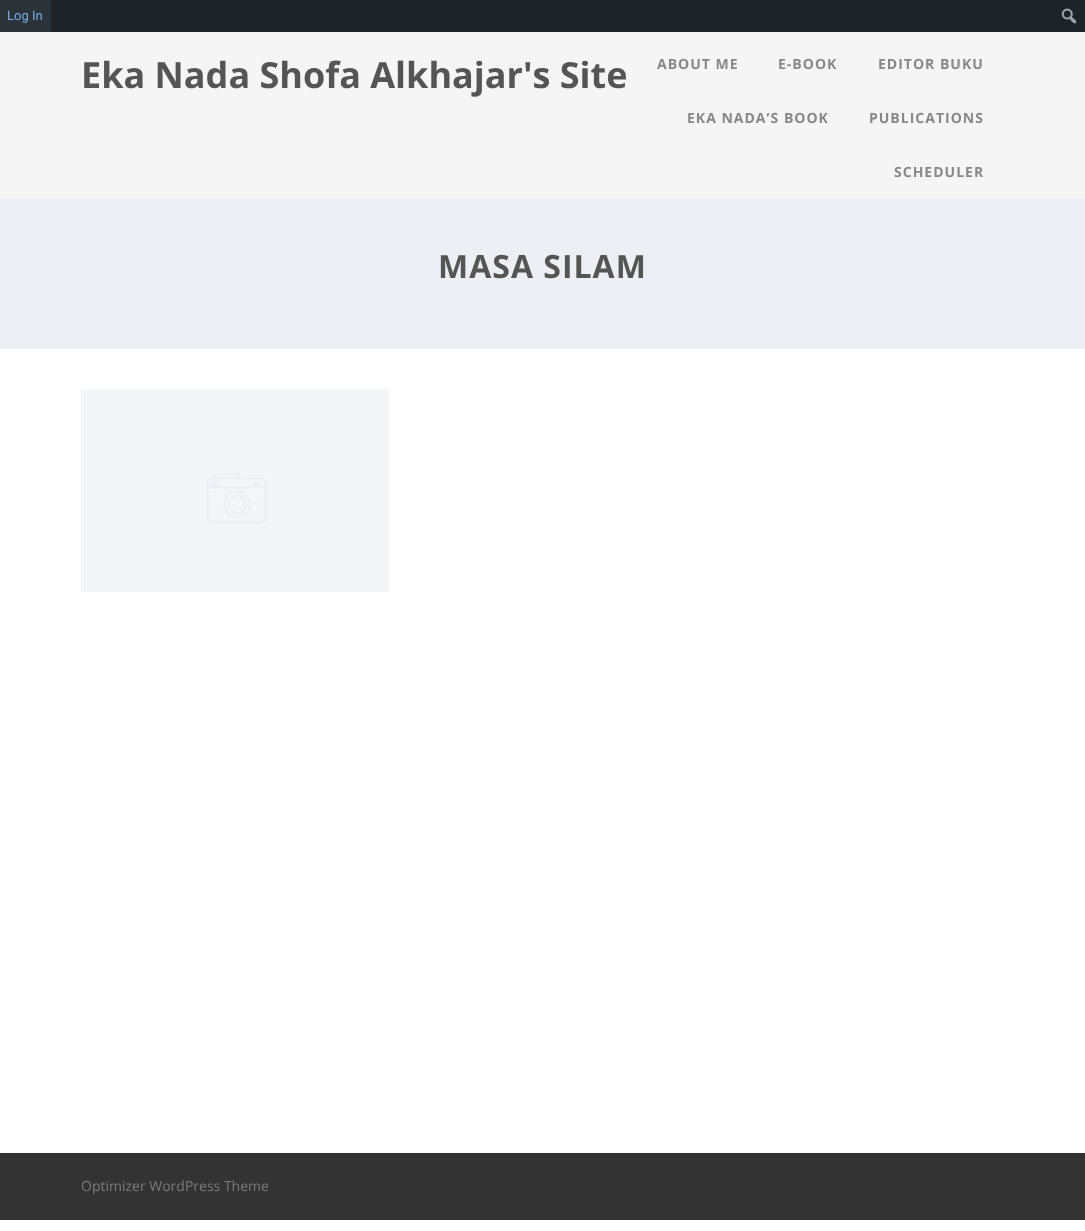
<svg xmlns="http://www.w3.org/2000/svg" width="1085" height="1231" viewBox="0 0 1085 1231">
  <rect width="100%" height="100%" fill="rgb(255,255,255)"/>
  <rect x="51" y="0" width="1034" height="32" fill="rgb(29,35,39)"/>
  <rect x="0" y="0" width="51" height="32" fill="rgb(44,51,56)"/>
  <text x="7" y="20" font-family="Roboto" font-size="13" fill="rgb(114,174,230)">Log In</text>
  <image x="1061" y="8" width="16" height="16" href="pic1.png"/>
  <rect x="0" y="32" width="1085" height="167" fill="rgb(245,245,245)"/>
  <text x="81" y="88" font-family="Open Sans" font-size="36" font-weight="bold" fill="rgb(85,85,85)">Eka Nada Shofa Alkhajar's Site</text>
  <g font-family="Open Sans" font-size="14" font-weight="bold" letter-spacing="1" fill="rgb(136,136,136)">
    <text x="657" y="69">ABOUT ME</text>
    <text x="778" y="69">E-BOOK</text>
    <text x="878" y="69">EDITOR BUKU</text>
    <text x="687" y="123">EKA NADA’S BOOK</text>
    <text x="869" y="123">PUBLICATIONS</text>
    <text x="894" y="177">SCHEDULER</text>
  </g>
  <rect x="0" y="199" width="1085" height="150" fill="rgb(238,239,245)"/>
  <text x="438" y="278" font-family="Open Sans" font-size="32" font-weight="bold" letter-spacing="1" fill="rgb(85,85,85)">MASA SILAM</text>
  <image x="81" y="389" width="308" height="203" href="pic2.png"/>
  <rect x="0" y="1153" width="1085" height="67" fill="rgb(51,51,51)"/>
  <text x="81" y="1191" font-family="Open Sans" font-size="14" fill="rgb(122,122,122)">Optimizer WordPress Theme</text>
</svg>
